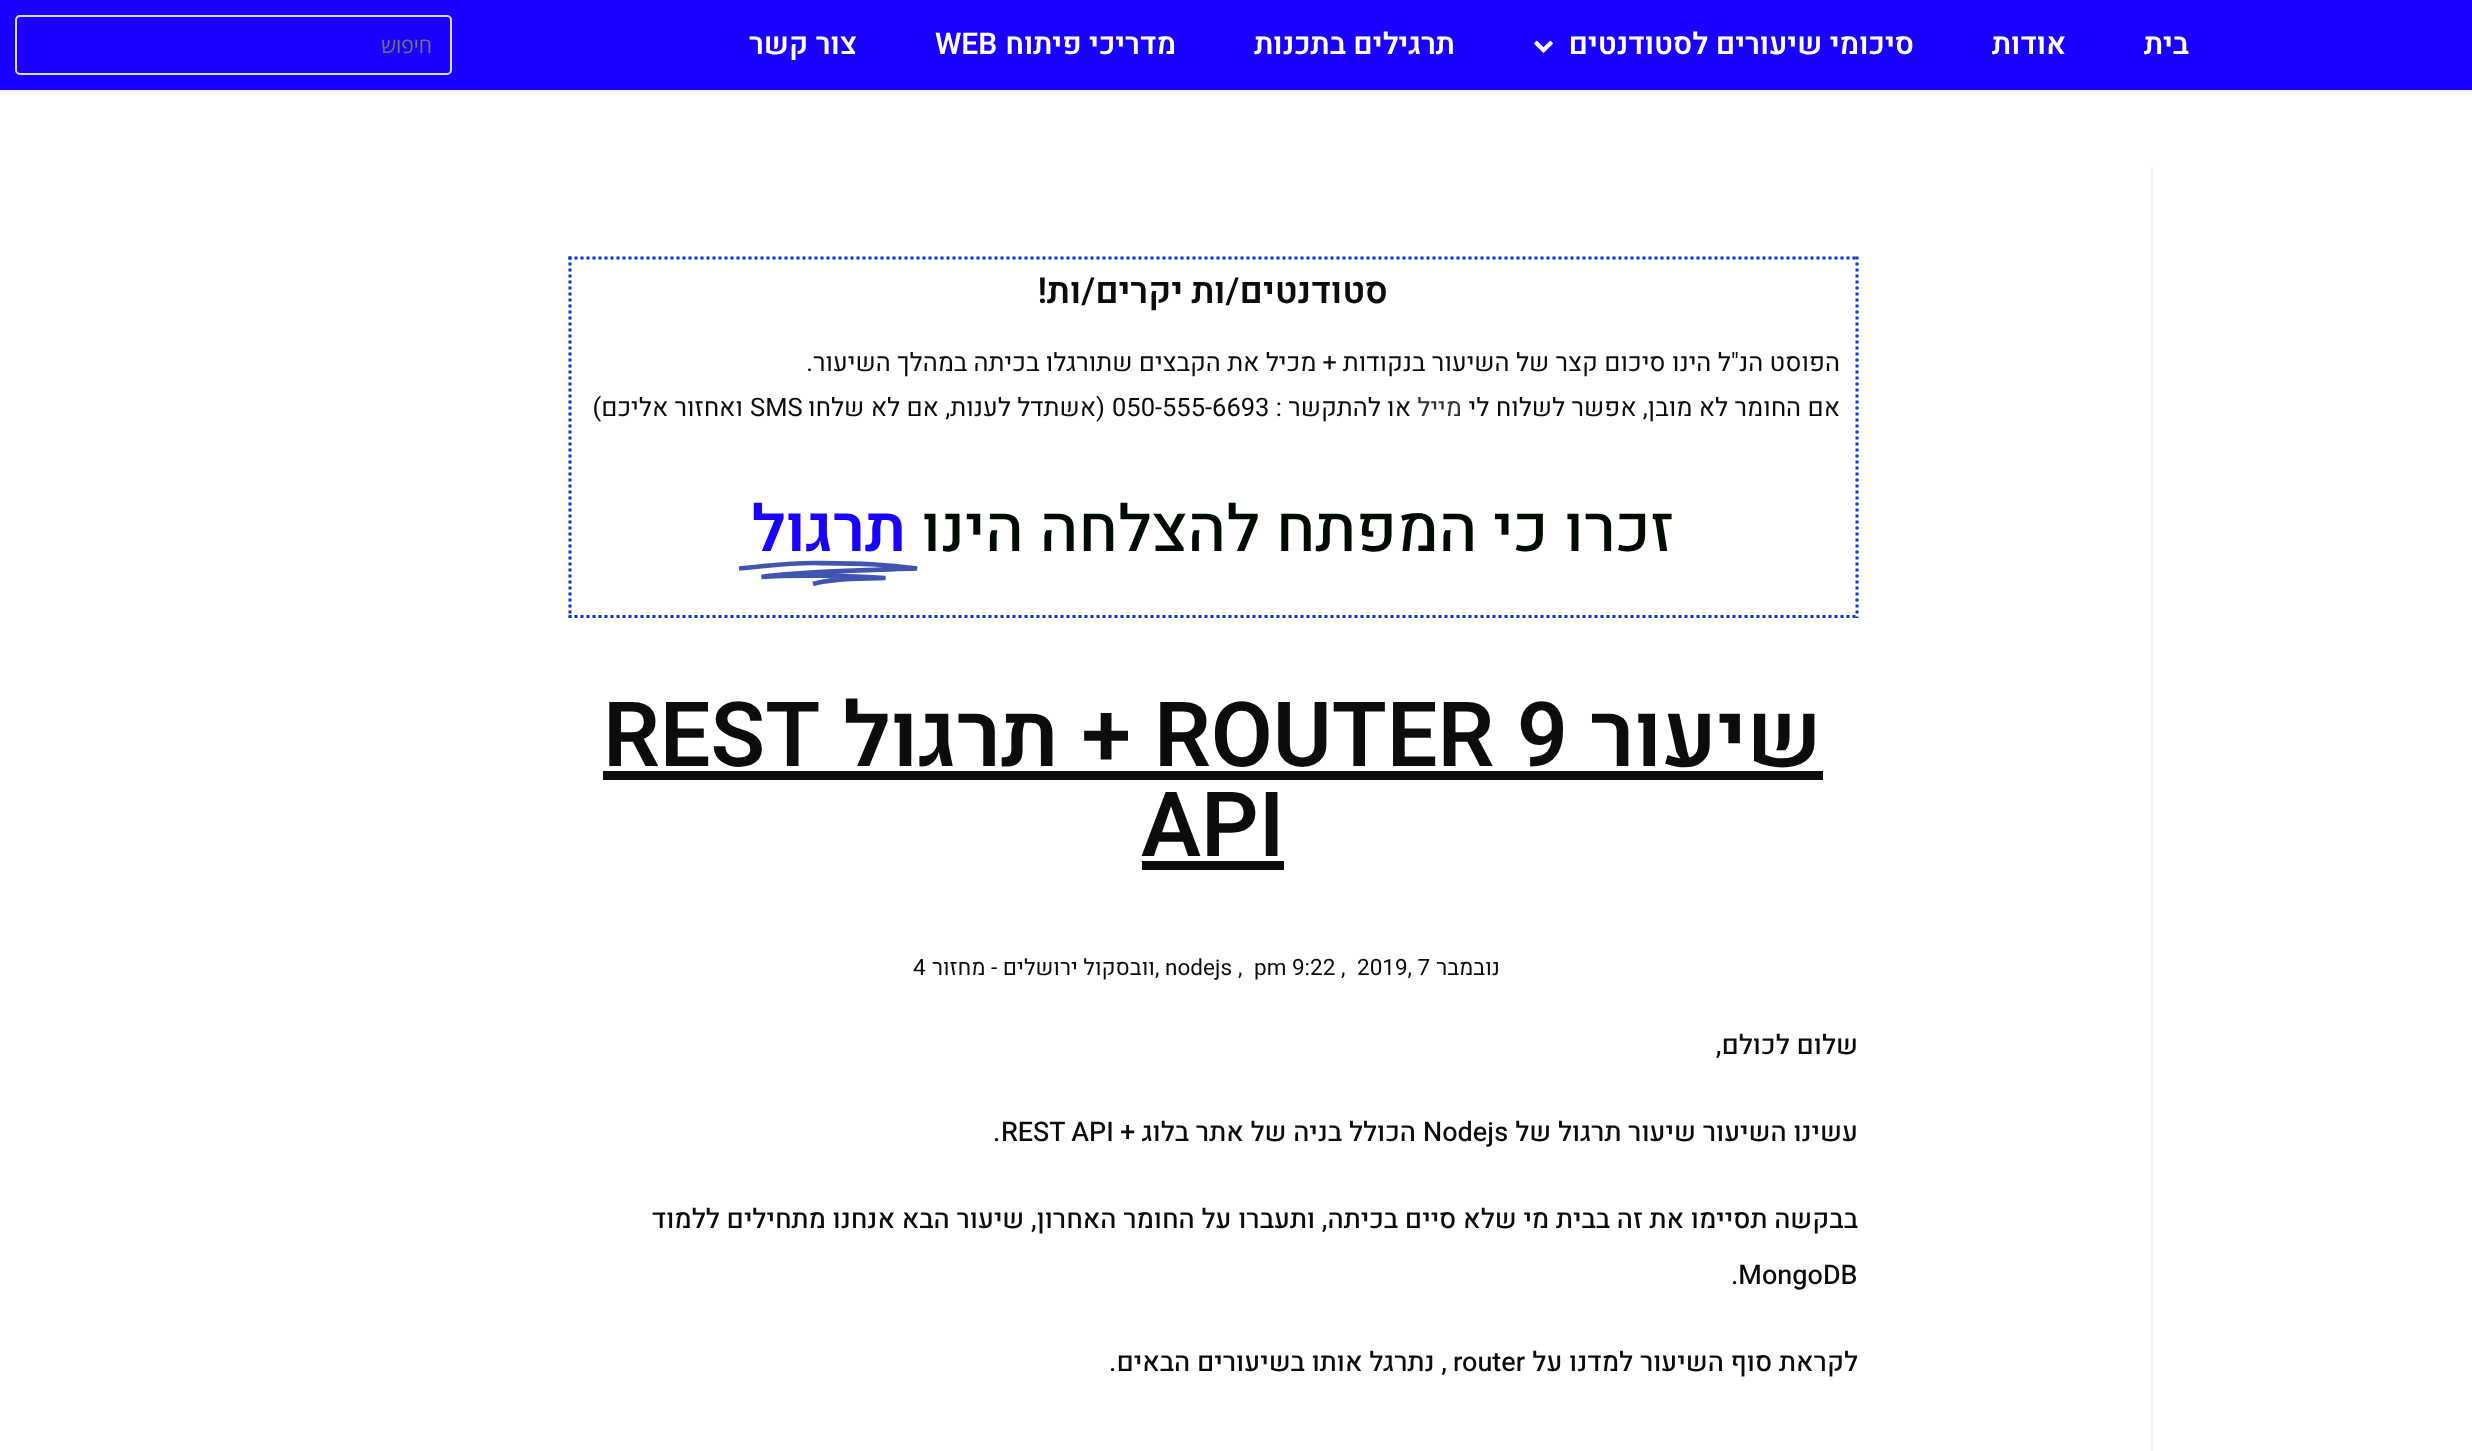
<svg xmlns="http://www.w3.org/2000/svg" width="2472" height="1451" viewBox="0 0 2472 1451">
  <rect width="100%" height="100%" fill="rgb(255,255,255)"/>
  <rect x="0" y="90" width="2472" height="2" fill="rgb(241,241,241)"/>
  <rect x="0" y="0" width="2472" height="90" fill="rgb(25,0,255)"/>
  <g font-family="Heebo" font-size="30" font-weight="600" direction="rtl" fill="rgb(255,255,255)">
    <text x="2189" y="54">בית</text>
    <text x="2066" y="54">אודות</text>
    <text x="1914" y="54">סיכומי שיעורים לסטודנטים</text>
  </g>
  <image x="1534" y="40" width="19" height="13" href="pic1.png"/>
  <g font-family="Heebo" font-size="30" font-weight="600" direction="rtl" fill="rgb(255,255,255)">
    <text x="1455" y="54">תרגילים בתכנות</text>
    <text x="1176" y="54">מדריכי פיתוח</text>
  </g>
  <text x="935" y="54" font-family="Heebo" font-size="30" font-weight="600" fill="rgb(255,255,255)">WEB</text>
  <text x="857" y="54" font-family="Heebo" font-size="30" font-weight="600" direction="rtl" fill="rgb(255,255,255)">צור קשר</text>
  <rect x="16" y="16" width="435" height="58" rx="4" fill="none" stroke="rgb(221,221,221)" stroke-width="2"/>
  <text x="432" y="53" font-family="Open Sans" font-size="21" direction="rtl" fill="rgb(117,117,117)">חיפוש</text>
  <rect x="2151" y="167" width="2" height="1284" fill="rgb(241,241,241)"/>
  <path d="M568.5 258H1858.5" fill="none" stroke="rgb(0,49,226)" stroke-width="3" stroke-dasharray="3 3"/>
  <path d="M1857 256.5V618" fill="none" stroke="rgb(0,49,226)" stroke-width="3" stroke-dasharray="3 3"/>
  <path d="M568.5 616.5H1858.5" fill="none" stroke="rgb(0,49,226)" stroke-width="3" stroke-dasharray="3 3"/>
  <path d="M570 256.5V618" fill="none" stroke="rgb(0,49,226)" stroke-width="3" stroke-dasharray="3 3"/>
  <g font-family="Heebo" font-size="36" font-weight="600" direction="rtl" fill="rgb(12,12,12)">
    <text x="1388" y="303">סטודנטים/ות</text>
    <text x="1183" y="303">יקרים/ות!</text>
  </g>
  <g font-family="Heebo" font-size="25.5" direction="rtl" fill="rgb(12,12,12)">
    <text>
      <tspan x="1840" y="371">הפוסט הנ"ל הינו סיכום קצר של השיעור בנקודות + מכיל את הקבצים שתורגלו בכיתה במהלך השיעור.</tspan>
      <tspan x="1840" y="416">אם החומר לא מובן, אפשר לשלוח לי</tspan>
    </text>
  </g>
  <text x="1462" y="416" font-family="Heebo" font-size="25.5" direction="rtl" fill="rgb(51,51,51)">מייל</text>
  <text x="1411" y="416" font-family="Heebo" font-size="25.5" direction="rtl" fill="rgb(12,12,12)">או להתקשר :</text>
  <text x="1112" y="416" font-family="Heebo" font-size="25.5" fill="rgb(12,12,12)">050-555-6693</text>
  <text x="1105" y="416" font-family="Heebo" font-size="25.5" direction="rtl" fill="rgb(12,12,12)">(אשתדל לענות, אם לא שלחו</text>
  <text x="750" y="416" font-family="Heebo" font-size="25.5" fill="rgb(12,12,12)">SMS</text>
  <text x="743" y="416" font-family="Heebo" font-size="25.5" direction="rtl" fill="rgb(12,12,12)">ואחזור אליכם)</text>
  <text x="1674" y="551" font-family="Heebo" font-size="64.5" font-weight="500" direction="rtl" fill="rgb(0,12,2)">זכרו כי המפתח להצלחה הינו</text>
  <text x="906" y="551" font-family="Heebo" font-size="64.5" font-weight="600" direction="rtl" fill="rgb(25,0,255)">תרגול</text>
  <path d="M739 568.5C757.5 566.5 795 563 813 563C858 563.5 883 563.5 917 568.5C876 570 802.5 571 761.5 577C792 574.5 855.5 576 885.5 578C865 579 835 577.5 813 584" fill="none" stroke="rgb(64,84,178)" stroke-width="4.6"/>
  <text x="1822" y="766" font-family="Heebo" font-size="90" font-weight="600" direction="rtl" fill="rgb(12,12,12)">שיעור</text>
  <rect x="603" y="771" width="1220" height="9" fill="rgb(12,12,12)"/>
  <text x="1154" y="766" font-family="Heebo" font-size="90" font-weight="600" fill="rgb(12,12,12)">ROUTER 9</text>
  <text x="1131" y="766" font-family="Heebo" font-size="90" font-weight="600" direction="rtl" fill="rgb(12,12,12)">+ תרגול</text>
  <g font-family="Heebo" font-size="90" font-weight="600" fill="rgb(12,12,12)">
    <text x="603" y="766">REST</text>
    <text x="1141" y="856">API</text>
  </g>
  <rect x="1142" y="861" width="142" height="9" fill="rgb(12,12,12)"/>
  <text x="1500" y="975" font-family="Heebo" font-size="22.5" direction="rtl" fill="rgb(12,12,12)">נובמבר</text>
  <g font-family="Heebo" font-size="22.5" fill="rgb(12,12,12)">
    <text x="1357" y="975">2019, 7</text>
    <text x="1341" y="975">,</text>
    <text x="1254" y="975">pm 9:22</text>
    <text x="1238" y="975">,</text>
    <text x="1165" y="975">nodejs</text>
    <text x="1155" y="975">,</text>
  </g>
  <text x="1155" y="975" font-family="Heebo" font-size="22.5" direction="rtl" fill="rgb(12,12,12)">וובסקול ירושלים - מחזור</text>
  <text x="913" y="975" font-family="Heebo" font-size="22.5" fill="rgb(12,12,12)">4</text>
  <g font-family="Heebo" font-size="27" font-weight="500" direction="rtl" fill="rgb(12,12,12)">
    <text x="1858" y="1054">שלום לכולם,</text>
    <text x="1858" y="1141">עשינו השיעור שיעור תרגול של</text>
  </g>
  <text x="1423" y="1141" font-family="Heebo" font-size="27" font-weight="500" fill="rgb(12,12,12)">Nodejs</text>
  <text x="1416" y="1141" font-family="Heebo" font-size="27" font-weight="500" direction="rtl" fill="rgb(12,12,12)">הכולל בניה של אתר בלוג +</text>
  <g font-family="Heebo" font-size="27" font-weight="500" fill="rgb(12,12,12)">
    <text x="1001" y="1141" word-spacing="-1">REST API</text>
    <text x="993" y="1141">.</text>
  </g>
  <text x="1858" y="1228" font-family="Heebo" font-size="27" font-weight="500" direction="rtl" fill="rgb(12,12,12)">בבקשה תסיימו את זה בבית מי שלא סיים בכיתה, ותעברו על החומר האחרון, שיעור הבא אנחנו מתחילים ללמוד</text>
  <text x="1731" y="1284" font-family="Heebo" font-size="27" font-weight="500" fill="rgb(12,12,12)">.MongoDB</text>
  <text x="1858" y="1371" font-family="Heebo" font-size="27" font-weight="500" direction="rtl" fill="rgb(12,12,12)">לקראת סוף השיעור למדנו על</text>
  <text x="1453" y="1371" font-family="Heebo" font-size="27" font-weight="500" fill="rgb(12,12,12)">router</text>
  <text x="1447" y="1371" font-family="Heebo" font-size="27" font-weight="500" direction="rtl" fill="rgb(12,12,12)">, נתרגל אותו בשיעורים הבאים.</text>
</svg>
